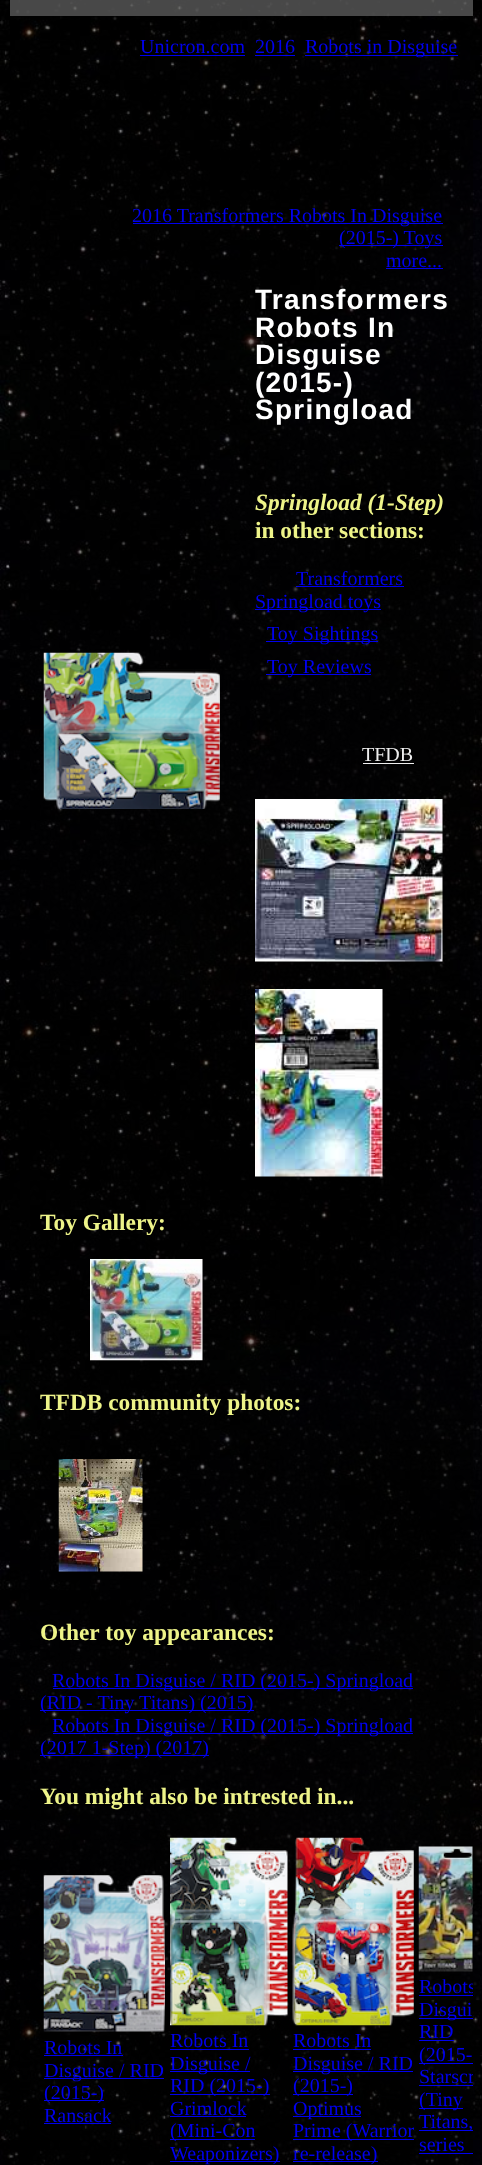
<svg xmlns="http://www.w3.org/2000/svg" width="482" height="2165" viewBox="0 0 482 2165">
  <defs>
    <clipPath id="clip1"><rect x="10" y="101" width="463" height="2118"/></clipPath>
  </defs>
  <rect width="100%" height="100%" fill="rgb(255,255,255)"/>
  <image x="0" y="0" width="482" height="2165" href="pic1.png"/>
  <rect x="10" y="0" width="463" height="16" fill="rgba(120,120,120,0.6)"/>
  <text x="140" y="53" font-family="Liberation Serif" font-size="20" fill="rgb(0,0,238)">Unicron.com</text>
  <rect x="140" y="55" width="105" height="1" fill="rgb(0,0,238)"/>
  <text x="255" y="53" font-family="Liberation Serif" font-size="20" fill="rgb(0,0,238)">2016</text>
  <rect x="255" y="55" width="40" height="1" fill="rgb(0,0,238)"/>
  <rect x="305" y="55" width="153" height="1" fill="rgb(0,0,238)"/>
  <text x="305" y="53" font-family="Liberation Serif" font-size="20" fill="rgb(0,0,238)">Robots in Disguise</text>
  <rect x="133" y="223" width="310" height="1" fill="rgb(0,0,238)"/>
  <text x="132" y="222" font-family="Liberation Serif" font-size="20" fill="rgb(0,0,238)">2016 Transformers Robots In Disguise</text>
  <rect x="339" y="245" width="104" height="1" fill="rgb(0,0,238)"/>
  <g font-family="Liberation Serif" font-size="20" fill="rgb(0,0,238)">
    <text x="339" y="244">(2015-) Toys</text>
    <text x="386" y="267">more...</text>
  </g>
  <rect x="386" y="268" width="57" height="1" fill="rgb(0,0,238)"/>
  <image x="43" y="652" width="177" height="157" href="pic2.png"/>
  <g font-family="Liberation Sans" font-size="28" font-weight="bold" letter-spacing="1.25" fill="rgb(255,255,255)">
    <text>
      <tspan x="255" y="309">Transformers</tspan>
      <tspan x="255" y="337">Robots In</tspan>
      <tspan x="255" y="364">Disguise</tspan>
      <tspan x="255" y="392">(2015-)</tspan>
      <tspan x="255" y="419">Springload</tspan>
    </text>
  </g>
  <text x="255" y="510" font-family="Liberation Serif" font-size="23.4" font-weight="bold" font-style="italic" fill="rgb(238,244,137)">Springload (1-Step)</text>
  <text x="255" y="538" font-family="Liberation Serif" font-size="23.4" font-weight="bold" fill="rgb(238,244,137)">in other sections:</text>
  <text x="296" y="585" font-family="Liberation Serif" font-size="20" fill="rgb(0,0,238)">Transformers</text>
  <rect x="296" y="586" width="108" height="1" fill="rgb(0,0,238)"/>
  <rect x="255" y="609" width="126" height="1" fill="rgb(0,0,238)"/>
  <text x="255" y="608" font-family="Liberation Serif" font-size="20" fill="rgb(0,0,238)">Springload toys</text>
  <rect x="266" y="641" width="112" height="1" fill="rgb(0,0,238)"/>
  <text x="267" y="640" font-family="Liberation Serif" font-size="20" fill="rgb(0,0,238)">Toy Sightings</text>
  <rect x="266" y="674" width="105" height="1" fill="rgb(0,0,238)"/>
  <text x="267" y="673" font-family="Liberation Serif" font-size="20" fill="rgb(0,0,238)">Toy Reviews</text>
  <text x="362" y="761" font-family="Liberation Serif" font-size="20" fill="rgb(238,238,238)">TFDB</text>
  <rect x="363" y="763" width="51" height="1" fill="rgb(238,238,238)"/>
  <image x="255" y="799" width="188" height="163" href="pic3.png"/>
  <image x="255" y="989" width="128" height="188" href="pic4.png"/>
  <text x="40" y="1230" font-family="Liberation Serif" font-size="23.4" font-weight="bold" fill="rgb(238,244,137)">Toy Gallery:</text>
  <image x="90" y="1259" width="113" height="102" href="pic5.png"/>
  <text x="40" y="1410" font-family="Liberation Serif" font-size="23.4" font-weight="bold" fill="rgb(238,244,137)">TFDB community photos:</text>
  <image x="58" y="1459" width="85" height="113" href="pic6.png"/>
  <text x="40" y="1640" font-family="Liberation Serif" font-size="23.4" font-weight="bold" fill="rgb(238,244,137)">Other toy appearances:</text>
  <rect x="53" y="1688" width="360" height="1" fill="rgb(0,0,238)"/>
  <text x="52" y="1687" font-family="Liberation Serif" font-size="20" fill="rgb(0,0,238)">Robots In Disguise / RID (2015-) Springload</text>
  <rect x="40" y="1710" width="214" height="1" fill="rgb(0,0,238)"/>
  <text x="40" y="1709" font-family="Liberation Serif" font-size="20" fill="rgb(0,0,238)">(RID - Tiny Titans) (2015)</text>
  <rect x="53" y="1733" width="360" height="1" fill="rgb(0,0,238)"/>
  <text x="52" y="1732" font-family="Liberation Serif" font-size="20" fill="rgb(0,0,238)">Robots In Disguise / RID (2015-) Springload</text>
  <rect x="40" y="1755" width="169" height="1" fill="rgb(0,0,238)"/>
  <text x="40" y="1754" font-family="Liberation Serif" font-size="20" fill="rgb(0,0,238)">(2017 1-Step) (2017)</text>
  <text x="40" y="1804" font-family="Liberation Serif" font-size="23.4" font-weight="bold" fill="rgb(238,244,137)">You might also be intrested in...</text>
  <image x="43" y="1875" width="122" height="157" href="pic7.png"/>
  <text x="44" y="2054" font-family="Liberation Serif" font-size="20" fill="rgb(0,0,238)">Robots In</text>
  <rect x="44" y="2055" width="79" height="1" fill="rgb(0,0,238)"/>
  <rect x="44" y="2078" width="120" height="1" fill="rgb(0,0,238)"/>
  <text x="44" y="2077" font-family="Liberation Serif" font-size="20" fill="rgb(0,0,238)">Disguise / RID</text>
  <rect x="44" y="2100" width="60" height="1" fill="rgb(0,0,238)"/>
  <g font-family="Liberation Serif" font-size="20" fill="rgb(0,0,238)">
    <text>
      <tspan x="44" y="2099">(2015-)</tspan>
      <tspan x="44" y="2122">Ransack</tspan>
    </text>
  </g>
  <rect x="44" y="2123" width="67" height="1" fill="rgb(0,0,238)"/>
  <image x="170" y="1837" width="118" height="189" href="pic8.png"/>
  <text x="170" y="2047" font-family="Liberation Serif" font-size="20" fill="rgb(0,0,238)">Robots In</text>
  <rect x="170" y="2049" width="79" height="1" fill="rgb(0,0,238)"/>
  <rect x="170" y="2071" width="80" height="1" fill="rgb(0,0,238)"/>
  <text x="170" y="2070" font-family="Liberation Serif" font-size="20" fill="rgb(0,0,238)">Disguise /</text>
  <rect x="170" y="2094" width="100" height="1" fill="rgb(0,0,238)"/>
  <g font-family="Liberation Serif" font-size="20" fill="rgb(0,0,238)">
    <text>
      <tspan x="170" y="2092">RID (2015-)</tspan>
      <tspan x="170" y="2115">Grimlock</tspan>
    </text>
  </g>
  <rect x="170" y="2116" width="76" height="1" fill="rgb(0,0,238)"/>
  <rect x="170" y="2139" width="85" height="1" fill="rgb(0,0,238)"/>
  <text x="170" y="2137" font-family="Liberation Serif" font-size="20" fill="rgb(0,0,238)">(Mini-Con</text>
  <rect x="170" y="2161" width="110" height="1" fill="rgb(0,0,238)"/>
  <text x="170" y="2160" font-family="Liberation Serif" font-size="20" fill="rgb(0,0,238)">Weaponizers)</text>
  <image x="292" y="1837" width="122" height="189" href="pic9.png"/>
  <text x="293" y="2047" font-family="Liberation Serif" font-size="20" fill="rgb(0,0,238)">Robots In</text>
  <rect x="293" y="2049" width="78" height="1" fill="rgb(0,0,238)"/>
  <rect x="293" y="2071" width="120" height="1" fill="rgb(0,0,238)"/>
  <text x="293" y="2070" font-family="Liberation Serif" font-size="20" fill="rgb(0,0,238)">Disguise / RID</text>
  <rect x="293" y="2094" width="60" height="1" fill="rgb(0,0,238)"/>
  <text x="293" y="2092" font-family="Liberation Serif" font-size="20" fill="rgb(0,0,238)">(2015-)</text>
  <rect x="293" y="2116" width="68" height="1" fill="rgb(0,0,238)"/>
  <text x="293" y="2115" font-family="Liberation Serif" font-size="20" fill="rgb(0,0,238)">Optimus</text>
  <rect x="293" y="2139" width="121" height="1" fill="rgb(0,0,238)"/>
  <text x="293" y="2137" font-family="Liberation Serif" font-size="20" fill="rgb(0,0,238)">Prime (Warrior</text>
  <rect x="293" y="2161" width="85" height="1" fill="rgb(0,0,238)"/>
  <text x="293" y="2160" font-family="Liberation Serif" font-size="20" fill="rgb(0,0,238)">re-release)</text>
  <image x="418" y="1846" width="55" height="126" href="pic10.png"/>
  <g clip-path="url(#clip1)">
    <text x="419" y="1993" font-family="Liberation Serif" font-size="20" fill="rgb(0,0,238)">Robots</text>
  </g>
  <rect x="419" y="1995" width="54" height="1" fill="rgb(0,0,238)"/>
  <rect x="419" y="2018" width="54" height="1" fill="rgb(0,0,238)"/>
  <g font-family="Liberation Serif" font-size="20" fill="rgb(0,0,238)">
    <text>
      <tspan x="419" y="2016">Disgui</tspan>
      <tspan x="419" y="2038">RID</tspan>
    </text>
  </g>
  <rect x="419" y="2040" width="35" height="1" fill="rgb(0,0,238)"/>
  <rect x="419" y="2063" width="54" height="1" fill="rgb(0,0,238)"/>
  <text x="419" y="2061" font-family="Liberation Serif" font-size="20" fill="rgb(0,0,238)">(2015-</text>
  <g clip-path="url(#clip1)">
    <text x="419" y="2083" font-family="Liberation Serif" font-size="20" fill="rgb(0,0,238)">Starscr</text>
  </g>
  <rect x="419" y="2085" width="54" height="1" fill="rgb(0,0,238)"/>
  <rect x="419" y="2108" width="44" height="1" fill="rgb(0,0,238)"/>
  <text x="419" y="2106" font-family="Liberation Serif" font-size="20" fill="rgb(0,0,238)">(Tiny</text>
  <rect x="419" y="2130" width="54" height="1" fill="rgb(0,0,238)"/>
  <g font-family="Liberation Serif" font-size="20" fill="rgb(0,0,238)">
    <text>
      <tspan x="419" y="2128">Titans,</tspan>
      <tspan x="419" y="2151">series</tspan>
    </text>
  </g>
  <rect x="419" y="2153" width="54" height="1" fill="rgb(0,0,238)"/>
</svg>
